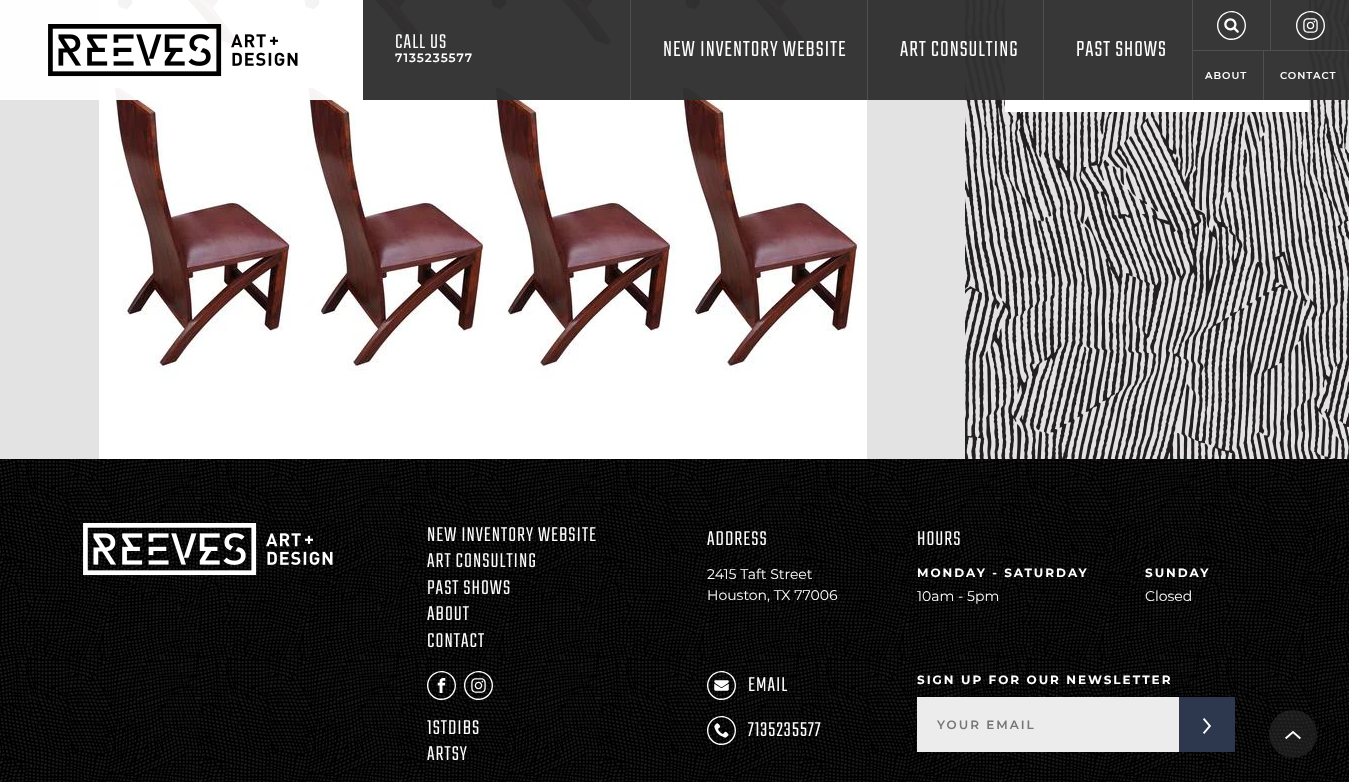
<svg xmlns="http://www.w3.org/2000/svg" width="1349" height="782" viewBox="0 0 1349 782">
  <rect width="100%" height="100%" fill="rgb(227,227,227)"/>
  <image x="99" y="0" width="768" height="459" href="pic1.png"/>
  <image x="965" y="0" width="384" height="459" href="pic2.png"/>
  <rect x="1005" y="0" width="304" height="112" fill="rgb(255,255,255)"/>
  <rect x="0" y="0" width="339" height="100" fill="rgba(255,255,255,0.95)"/>
  <image x="48" y="24" width="250" height="53" href="pic3.png"/>
  <rect x="363" y="0" width="986" height="100" fill="rgba(49,49,49,0.97)"/>
  <text x="395" y="48" font-family="Teko" font-size="22" font-weight="300" letter-spacing="1" fill="rgb(255,255,255)">CALL US</text>
  <text x="395" y="62" font-family="Montserrat" font-size="12" font-weight="600" letter-spacing="1" fill="rgb(255,255,255)">7135235577</text>
  <rect x="630" y="0" width="1" height="100" fill="rgb(80,80,80)"/>
  <text x="663" y="56" font-family="Teko" font-size="24" font-weight="300" letter-spacing="1" fill="rgb(255,255,255)">NEW INVENTORY WEBSITE</text>
  <rect x="867" y="0" width="1" height="100" fill="rgb(80,80,80)"/>
  <text x="900" y="56" font-family="Teko" font-size="24" font-weight="300" letter-spacing="1" fill="rgb(255,255,255)">ART CONSULTING</text>
  <rect x="1043" y="0" width="1" height="100" fill="rgb(80,80,80)"/>
  <text x="1076" y="56" font-family="Teko" font-size="24" font-weight="300" letter-spacing="1" fill="rgb(255,255,255)">PAST SHOWS</text>
  <rect x="1192" y="0" width="1" height="100" fill="rgb(80,80,80)"/>
  <image x="1217" y="11" width="29" height="29" href="pic4.png"/>
  <rect x="1270" y="0" width="1" height="50" fill="rgb(80,80,80)"/>
  <image x="1296" y="11" width="29" height="29" href="pic5.png"/>
  <rect x="1193" y="50" width="156" height="1" fill="rgb(80,80,80)"/>
  <text x="1205" y="79" font-family="Montserrat" font-size="10" font-weight="600" letter-spacing="1" fill="rgb(255,255,255)">ABOUT</text>
  <rect x="1263" y="51" width="1" height="49" fill="rgb(80,80,80)"/>
  <text x="1280" y="79" font-family="Montserrat" font-size="10" font-weight="600" letter-spacing="1" fill="rgb(255,255,255)">CONTACT</text>
  <rect x="0" y="459" width="1349" height="323" fill="rgb(27,27,27)"/>
  <image x="0" y="459" width="1349" height="323" href="pic6.png"/>
  <image x="83" y="523" width="250" height="53" href="pic7.png"/>
  <g font-family="Teko" font-size="22" font-weight="300" letter-spacing="1" fill="rgb(255,255,255)">
    <text>
      <tspan x="427" y="541">NEW INVENTORY WEBSITE</tspan>
      <tspan x="427" y="567">ART CONSULTING</tspan>
      <tspan x="427" y="594">PAST SHOWS</tspan>
      <tspan x="427" y="620">ABOUT</tspan>
      <tspan x="427" y="647">CONTACT</tspan>
    </text>
    <text x="707" y="545">ADDRESS</text>
  </g>
  <g font-family="Montserrat" font-size="14" fill="rgb(255,255,255)">
    <text>
      <tspan x="707" y="579">2415 Taft Street</tspan>
      <tspan x="707" y="600">Houston, TX 77006</tspan>
    </text>
  </g>
  <text x="917" y="545" font-family="Teko" font-size="22" font-weight="300" letter-spacing="1" fill="rgb(255,255,255)">HOURS</text>
  <text x="917" y="577" font-family="Montserrat" font-size="12" font-weight="bold" letter-spacing="2" fill="rgb(255,255,255)">MONDAY - SATURDAY</text>
  <text x="917" y="601" font-family="Montserrat" font-size="14" fill="rgb(255,255,255)">10am - 5pm</text>
  <text x="1145" y="577" font-family="Montserrat" font-size="12" font-weight="bold" letter-spacing="2" fill="rgb(255,255,255)">SUNDAY</text>
  <text x="1145" y="601" font-family="Montserrat" font-size="14" fill="rgb(255,255,255)">Closed</text>
  <image x="707" y="671" width="29" height="29" href="pic8.png"/>
  <text x="748" y="691" font-family="Teko" font-size="22" font-weight="300" letter-spacing="1" fill="rgb(255,255,255)">EMAIL</text>
  <image x="707" y="716" width="29" height="29" href="pic9.png"/>
  <text x="748" y="736" font-family="Teko" font-size="22" font-weight="300" letter-spacing="1" fill="rgb(255,255,255)">7135235577</text>
  <text x="917" y="684" font-family="Montserrat" font-size="12" font-weight="bold" letter-spacing="2" fill="rgb(255,255,255)">SIGN UP FOR OUR NEWSLETTER</text>
  <rect x="917" y="697" width="262" height="55" fill="rgb(236,236,236)"/>
  <text x="937" y="729" font-family="Montserrat" font-size="12" font-weight="600" letter-spacing="2" fill="rgb(117,117,117)">YOUR EMAIL</text>
  <rect x="1179" y="697" width="56" height="55" fill="rgb(45,56,78)"/>
  <image x="1203" y="718" width="8" height="16" href="pic10.png"/>
  <image x="427" y="671" width="29" height="29" href="pic11.png"/>
  <image x="464" y="671" width="29" height="29" href="pic12.png"/>
  <g font-family="Teko" font-size="22" font-weight="300" letter-spacing="1" fill="rgb(255,255,255)">
    <text>
      <tspan x="427" y="734">1STDIBS</tspan>
      <tspan x="427" y="760">ARTSY</tspan>
    </text>
  </g>
  <circle cx="1293" cy="734" r="24" fill="rgba(49,49,49,0.5)"/>
  <image x="1285" y="730" width="16" height="10" href="pic13.png"/>
</svg>
